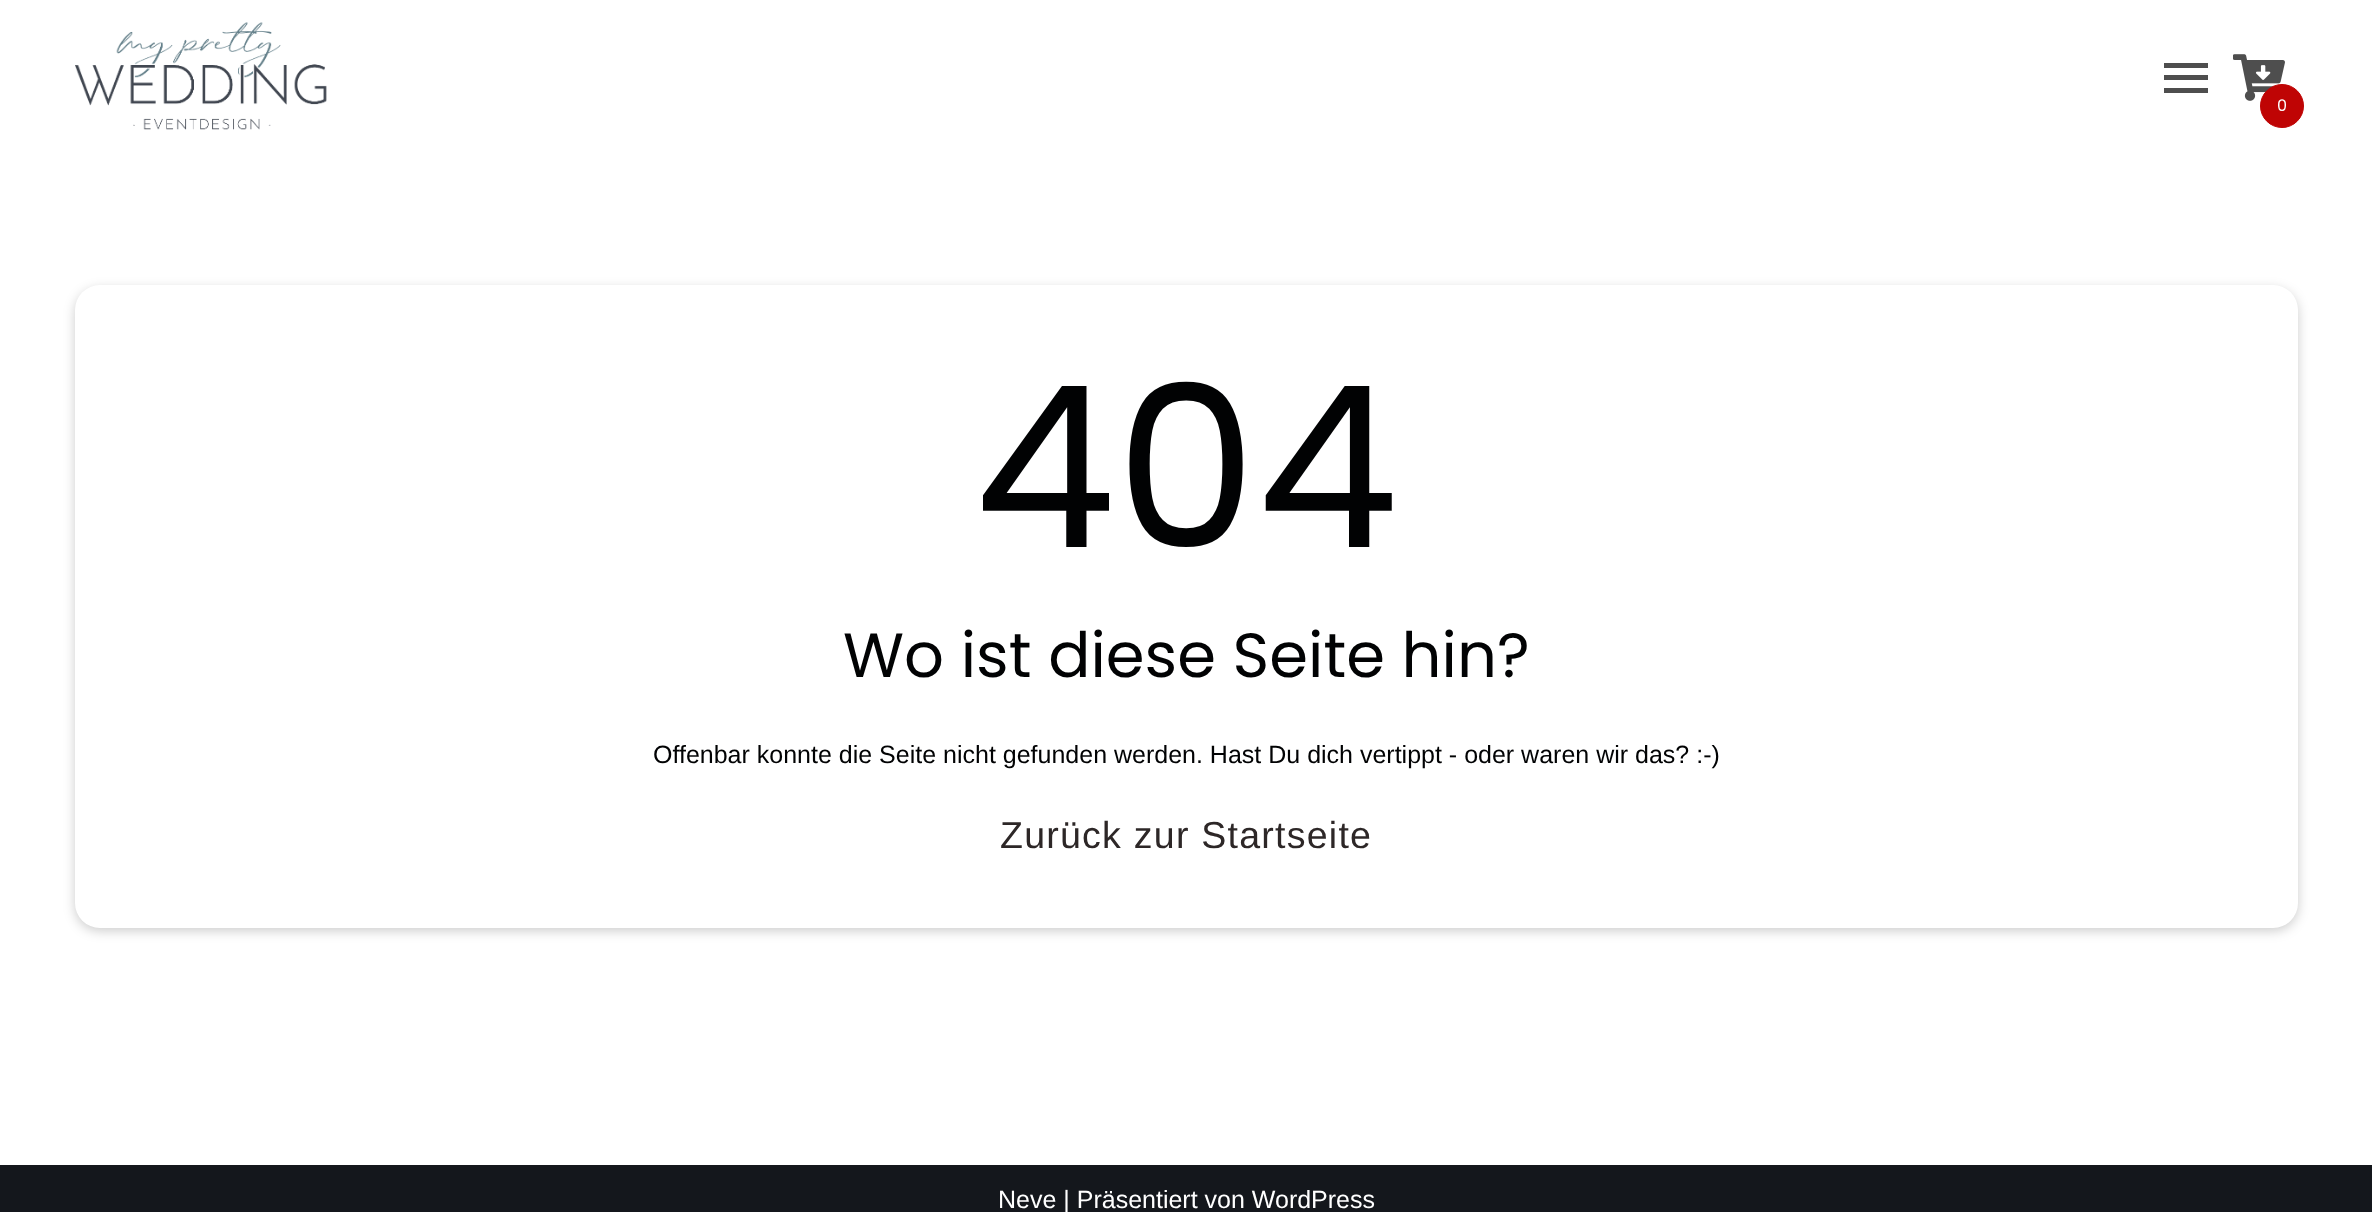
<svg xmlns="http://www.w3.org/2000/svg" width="2372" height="1212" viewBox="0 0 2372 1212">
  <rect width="100%" height="100%" fill="rgb(255,255,255)"/>
  <image x="75" y="22" width="252" height="108" href="pic1.png"/>
  <rect x="2164" y="63" width="44" height="5" fill="rgb(78,78,78)"/>
  <rect x="2164" y="75" width="44" height="5" fill="rgb(78,78,78)"/>
  <rect x="2164" y="88" width="44" height="5" fill="rgb(78,78,78)"/>
  <image x="2233" y="54" width="52" height="47" href="pic2.png"/>
  <circle cx="2282" cy="106" r="21.5" fill="rgb(191,4,4)" stroke="rgb(191,4,4)"/>
  <text x="2277" y="111" font-family="Poppins" font-size="16" fill="rgb(255,255,255)">0</text>
  <rect x="75" y="289" width="2223" height="642" rx="25" fill="rgba(0,0,0,0.2)" filter="blur(6px)"/>
  <rect x="75" y="285" width="2223" height="643" rx="25" fill="rgb(255,255,255)"/>
  <text x="974" y="547" font-family="Poppins" font-size="225" fill="rgb(1,2,3)">404</text>
  <text x="843" y="677" font-family="Poppins" font-size="62.5" fill="rgb(1,2,3)">Wo ist diese Seite hin?</text>
  <text x="653" y="763" font-family="Liberation Sans" font-size="25" fill="rgb(1,2,3)">Offenbar konnte die Seite nicht gefunden werden. Hast Du dich vertippt - oder waren wir das? :-)</text>
  <text x="1000" y="848" font-family="Liberation Sans" font-size="37.5" letter-spacing="1.25" fill="rgb(45,39,39)">Zurück zur Startseite</text>
  <rect x="0" y="1165" width="2372" height="47" fill="rgb(20,23,28)"/>
  <text x="998" y="1208" font-family="Liberation Sans" font-size="25" fill="rgb(255,255,255)">Neve | Präsentiert von WordPress</text>
</svg>
